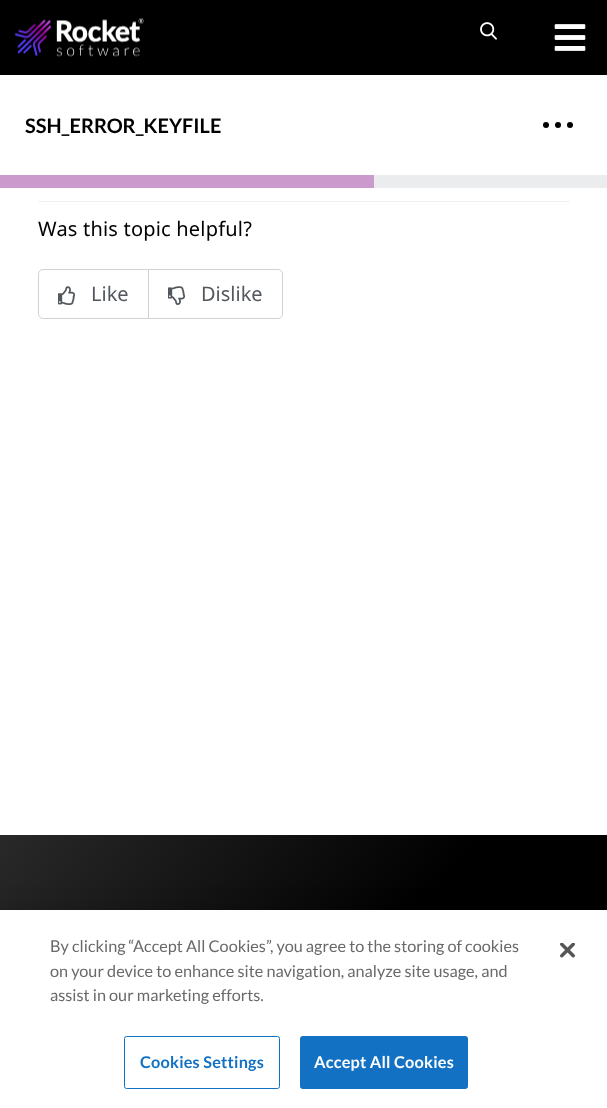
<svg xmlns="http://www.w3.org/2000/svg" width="607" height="1108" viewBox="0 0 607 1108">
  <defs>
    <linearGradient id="g1" gradientUnits="userSpaceOnUse" x1="-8" y1="845" x2="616" y2="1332"><stop offset="0" stop-color="rgb(41,41,41)"/><stop offset="0.48" stop-color="rgb(0,0,0)"/><stop offset="1" stop-color="rgb(0,0,0)"/></linearGradient>
  </defs>
  <rect width="100%" height="100%" fill="rgb(255,255,255)"/>
  <rect x="0" y="0" width="607" height="75" fill="rgb(0,0,0)"/>
  <image x="15" y="18" width="129" height="39" href="pic1.png"/>
  <image x="480" y="22" width="17" height="18" href="pic2.png"/>
  <image x="554" y="24" width="32" height="27" href="pic3.png"/>
  <text x="25" y="133" font-family="Lato" font-size="20" font-weight="bold" fill="rgb(0,0,0)">SSH_ERROR_KEYFILE</text>
  <circle cx="546" cy="125" r="3" fill="rgb(0,0,0)"/>
  <circle cx="558" cy="125" r="3" fill="rgb(0,0,0)"/>
  <circle cx="570" cy="125" r="3" fill="rgb(0,0,0)"/>
  <rect x="0" y="175" width="374" height="13" fill="rgb(204,153,204)"/>
  <rect x="374" y="175" width="233" height="13" fill="rgb(235,236,238)"/>
  <rect x="38" y="201" width="532" height="1" fill="rgb(242,242,242)"/>
  <text x="38" y="236" font-family="Noto Sans" font-size="20" letter-spacing="0.2" fill="rgb(0,0,0)">Was this topic helpful?</text>
  <rect x="38.5" y="269.5" width="244" height="49" rx="4.5" fill="none" stroke="rgb(210,210,210)"/>
  <rect x="148" y="270" width="1" height="48" fill="rgb(210,210,210)"/>
  <image x="58" y="286" width="17" height="19" href="pic4.png"/>
  <text x="91" y="301" font-family="Noto Sans" font-size="20" fill="rgb(82,88,93)">Like</text>
  <image x="168" y="286" width="18" height="19" href="pic5.png"/>
  <text x="201" y="301" font-family="Noto Sans" font-size="20" fill="rgb(82,88,93)">Dislike</text>
  <rect x="0" y="835" width="607" height="75" fill="url(#g1)"/>
  <rect x="0" y="910" width="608" height="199" fill="rgba(0,0,0,0.2)" filter="blur(11px)"/>
  <rect x="0" y="910" width="607" height="198" fill="rgb(255,255,255)"/>
  <g font-family="Lato" font-size="16.25" fill="rgb(105,105,105)">
    <text>
      <tspan x="50" y="952">By clicking “Accept All Cookies”, you agree to the storing of cookies</tspan>
      <tspan x="50" y="977">on your device to enhance site navigation, analyze site usage, and</tspan>
      <tspan x="50" y="1001">assist in our marketing efforts.</tspan>
    </text>
  </g>
  <rect x="124.5" y="1036.5" width="155" height="52" rx="2" fill="none" stroke="rgb(19,113,195)"/>
  <text x="140" y="1068" font-family="Lato" font-size="16.25" font-weight="bold" letter-spacing="0.2" fill="rgb(19,113,195)">Cookies Settings</text>
  <rect x="300.5" y="1036.5" width="167" height="52" rx="2" fill="rgb(19,113,195)" stroke="rgb(19,113,195)"/>
  <text x="314" y="1068" font-family="Lato" font-size="16.25" font-weight="bold" letter-spacing="0.2" fill="rgb(255,255,255)">Accept All Cookies</text>
  <image x="560" y="943" width="15" height="15" href="pic6.png"/>
</svg>
